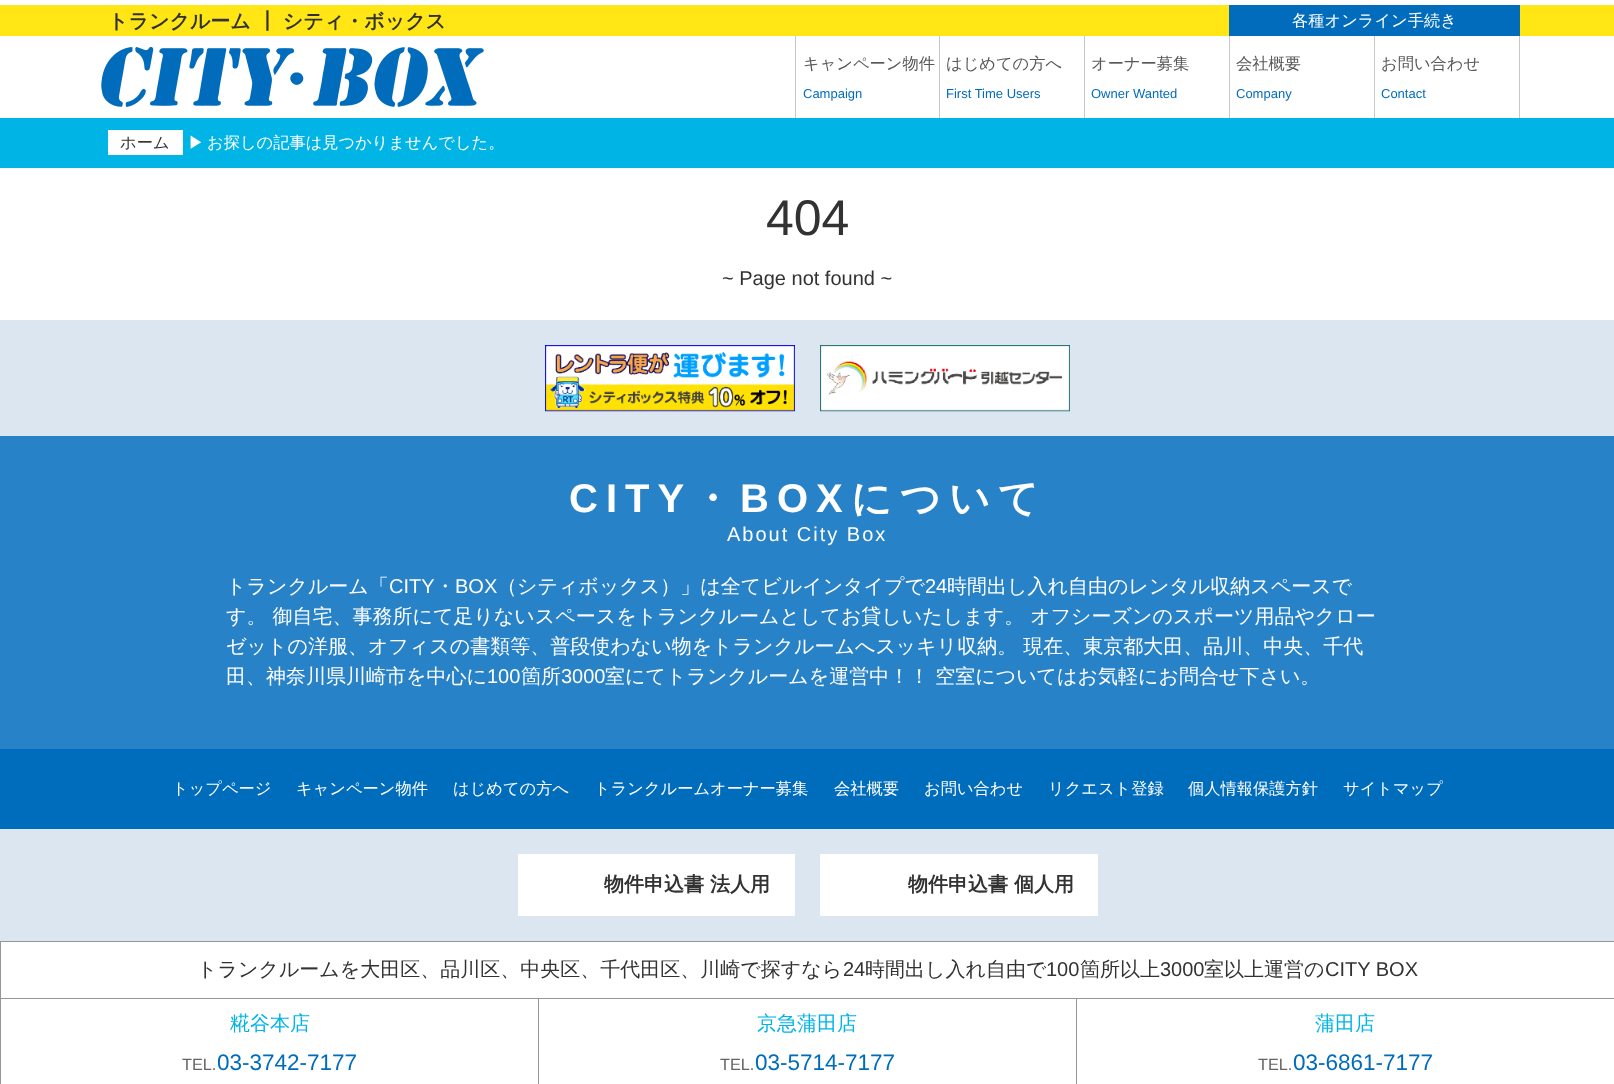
<svg xmlns="http://www.w3.org/2000/svg" width="1614" height="1084" viewBox="0 0 1614 1084">
  <rect width="100%" height="100%" fill="rgb(255,255,255)"/>
  <rect x="0" y="5" width="1614" height="31" fill="rgb(255,230,20)"/>
  <rect x="0" y="118" width="1614" height="50" fill="rgb(0,180,230)"/>
  <text x="108" y="28" font-family="WenQuanYi Zen Hei" font-size="20" font-weight="bold" fill="rgb(50,50,50)">トランクルーム ┃ シティ・ボックス</text>
  <image x="101" y="46" width="383" height="61" href="pic1.png"/>
  <rect x="1229" y="5" width="291" height="31" fill="rgb(1,108,188)"/>
  <text x="1292" y="26" font-family="WenQuanYi Zen Hei" font-size="16.25" font-weight="500" fill="rgb(255,255,255)">各種オンライン手続き</text>
  <rect x="939" y="36" width="1" height="82" fill="rgb(200,200,200)"/>
  <rect x="795" y="36" width="1" height="82" fill="rgb(200,200,200)"/>
  <text x="803" y="69" font-family="WenQuanYi Zen Hei" font-size="16.25" font-weight="500" fill="rgb(88,88,88)">キャンペーン物件</text>
  <text x="803" y="98" font-family="Liberation Sans" font-size="13" fill="rgb(1,108,188)">Campaign</text>
  <rect x="1084" y="36" width="1" height="82" fill="rgb(200,200,200)"/>
  <text x="946" y="69" font-family="WenQuanYi Zen Hei" font-size="16.25" font-weight="500" fill="rgb(88,88,88)">はじめての方へ</text>
  <text x="946" y="98" font-family="Liberation Sans" font-size="13" fill="rgb(1,108,188)">First Time Users</text>
  <rect x="1229" y="36" width="1" height="82" fill="rgb(200,200,200)"/>
  <text x="1091" y="69" font-family="WenQuanYi Zen Hei" font-size="16.25" font-weight="500" fill="rgb(88,88,88)">オーナー募集</text>
  <text x="1091" y="98" font-family="Liberation Sans" font-size="13" fill="rgb(1,108,188)">Owner Wanted</text>
  <rect x="1374" y="36" width="1" height="82" fill="rgb(200,200,200)"/>
  <text x="1236" y="69" font-family="WenQuanYi Zen Hei" font-size="16.25" font-weight="500" fill="rgb(88,88,88)">会社概要</text>
  <text x="1236" y="98" font-family="Liberation Sans" font-size="13" fill="rgb(1,108,188)">Company</text>
  <rect x="1519" y="36" width="1" height="82" fill="rgb(200,200,200)"/>
  <text x="1381" y="69" font-family="WenQuanYi Zen Hei" font-size="16.25" font-weight="500" fill="rgb(88,88,88)">お問い合わせ</text>
  <text x="1381" y="98" font-family="Liberation Sans" font-size="13" fill="rgb(1,108,188)">Contact</text>
  <rect x="108" y="130" width="75" height="25" fill="rgb(255,255,255)"/>
  <text x="120" y="148" font-family="WenQuanYi Zen Hei" font-size="16.25" font-weight="500" fill="rgb(50,50,50)">ホーム</text>
  <g font-family="WenQuanYi Zen Hei" font-size="16.25" font-weight="500" fill="rgb(255,255,255)">
    <text x="188" y="148">▶</text>
    <text x="207" y="148">お探しの記事は見つかりませんでした。</text>
  </g>
  <text x="766" y="235" font-family="Liberation Sans" font-size="50" fill="rgb(50,50,50)">404</text>
  <text x="722" y="285" font-family="Liberation Sans" font-size="20" fill="rgb(50,50,50)">~ Page not found ~</text>
  <rect x="0" y="320" width="1614" height="116" fill="rgb(220,230,240)"/>
  <image x="545" y="345" width="250" height="67" href="pic2.png"/>
  <image x="820" y="345" width="250" height="67" href="pic3.png"/>
  <rect x="0" y="436" width="1614" height="313" fill="rgb(40,130,200)"/>
  <text x="569" y="512" font-family="Liberation Sans" font-size="40" font-weight="bold" letter-spacing="8" fill="rgb(255,255,255)">CITY</text>
  <text x="692" y="512" font-family="WenQuanYi Zen Hei" font-size="40" font-weight="bold" letter-spacing="8" fill="rgb(255,255,255)">・</text>
  <text x="740" y="512" font-family="Liberation Sans" font-size="40" font-weight="bold" letter-spacing="8" fill="rgb(255,255,255)">BOX</text>
  <text x="851" y="512" font-family="WenQuanYi Zen Hei" font-size="40" font-weight="bold" letter-spacing="8" fill="rgb(255,255,255)">について</text>
  <text x="727" y="541" font-family="Liberation Sans" font-size="20" letter-spacing="2" fill="rgb(255,255,255)">About City Box</text>
  <text x="226" y="593" font-family="WenQuanYi Zen Hei" font-size="20" font-weight="500" fill="rgb(255,255,255)">トランクルーム「</text>
  <text x="389" y="593" font-family="Liberation Sans" font-size="20" fill="rgb(255,255,255)">CITY</text>
  <text x="435" y="593" font-family="WenQuanYi Zen Hei" font-size="20" font-weight="500" fill="rgb(255,255,255)">・</text>
  <text x="455" y="593" font-family="Liberation Sans" font-size="20" fill="rgb(255,255,255)">BOX</text>
  <text x="497" y="593" font-family="WenQuanYi Zen Hei" font-size="20" font-weight="500" fill="rgb(255,255,255)">（シティボックス）」は全てビルインタイプで</text>
  <text x="925" y="593" font-family="Liberation Sans" font-size="20" fill="rgb(255,255,255)">24</text>
  <g font-family="WenQuanYi Zen Hei" font-size="20" font-weight="500" fill="rgb(255,255,255)">
    <text x="947" y="593">時間出し入れ自由のレンタル収納スペースで</text>
    <text>
      <tspan x="226" y="623">す。 御自宅、事務所にて足りないスペースをトランクルームとしてお貸しいたします。 オフシーズンのスポーツ用品やクロー</tspan>
      <tspan x="226" y="653">ゼットの洋服、オフィスの書類等、普段使わない物をトランクルームへスッキリ収納。 現在、東京都大田、品川、中央、千代</tspan>
      <tspan x="226" y="683">田、神奈川県川崎市を中心に</tspan>
    </text>
  </g>
  <text x="487" y="683" font-family="Liberation Sans" font-size="20" fill="rgb(255,255,255)">100</text>
  <text x="521" y="683" font-family="WenQuanYi Zen Hei" font-size="20" font-weight="500" fill="rgb(255,255,255)">箇所</text>
  <text x="561" y="683" font-family="Liberation Sans" font-size="20" fill="rgb(255,255,255)">3000</text>
  <text x="605" y="683" font-family="WenQuanYi Zen Hei" font-size="20" font-weight="500" fill="rgb(255,255,255)">室にてトランクルームを運営中！！ 空室についてはお気軽にお問合せ下さい。</text>
  <rect x="0" y="749" width="1614" height="80" fill="rgb(0,108,188)"/>
  <g font-family="WenQuanYi Zen Hei" font-size="16.25" font-weight="500" fill="rgb(255,255,255)">
    <text x="172" y="794">トップページ</text>
    <text x="296" y="794">キャンペーン物件</text>
    <text x="453" y="794">はじめての方へ</text>
    <text x="594" y="794">トランクルームオーナー募集</text>
    <text x="834" y="794">会社概要</text>
    <text x="924" y="794">お問い合わせ</text>
    <text x="1048" y="794">リクエスト登録</text>
    <text x="1188" y="794">個人情報保護方針</text>
    <text x="1343" y="794">サイトマップ</text>
  </g>
  <rect x="0" y="829" width="1614" height="112" fill="rgb(220,230,240)"/>
  <rect x="518" y="854" width="277" height="62" fill="rgb(255,255,255)"/>
  <text x="604" y="891" font-family="WenQuanYi Zen Hei" font-size="20" font-weight="bold" fill="rgb(50,50,50)">物件申込書 法人用</text>
  <rect x="820" y="854" width="278" height="62" fill="rgb(255,255,255)"/>
  <text x="908" y="891" font-family="WenQuanYi Zen Hei" font-size="20" font-weight="bold" fill="rgb(50,50,50)">物件申込書 個人用</text>
  <rect x="0" y="941" width="1614" height="1" fill="rgb(150,150,150)"/>
  <rect x="0" y="941" width="1" height="143" fill="rgb(150,150,150)"/>
  <rect x="1" y="998" width="1613" height="1" fill="rgb(150,150,150)"/>
  <text x="197" y="976" font-family="WenQuanYi Zen Hei" font-size="20" font-weight="500" fill="rgb(50,50,50)">トランクルームを大田区、品川区、中央区、千代田区、川崎で探すなら</text>
  <text x="843" y="976" font-family="Liberation Sans" font-size="20" fill="rgb(50,50,50)">24</text>
  <text x="865" y="976" font-family="WenQuanYi Zen Hei" font-size="20" font-weight="500" fill="rgb(50,50,50)">時間出し入れ自由で</text>
  <text x="1046" y="976" font-family="Liberation Sans" font-size="20" fill="rgb(50,50,50)">100</text>
  <text x="1080" y="976" font-family="WenQuanYi Zen Hei" font-size="20" font-weight="500" fill="rgb(50,50,50)">箇所以上</text>
  <text x="1160" y="976" font-family="Liberation Sans" font-size="20" fill="rgb(50,50,50)">3000</text>
  <text x="1204" y="976" font-family="WenQuanYi Zen Hei" font-size="20" font-weight="500" fill="rgb(50,50,50)">室以上運営の</text>
  <text x="1325" y="976" font-family="Liberation Sans" font-size="20" fill="rgb(50,50,50)">CITY BOX</text>
  <rect x="538" y="999" width="1" height="85" fill="rgb(150,150,150)"/>
  <text x="230" y="1030" font-family="WenQuanYi Zen Hei" font-size="20" font-weight="500" fill="rgb(0,180,230)">糀谷本店</text>
  <text x="182" y="1070" font-family="Liberation Sans" font-size="16.25" fill="rgb(100,100,100)">TEL.</text>
  <text x="217" y="1070" font-family="Liberation Sans" font-size="22.5" fill="rgb(1,108,188)">03-3742-7177</text>
  <rect x="1076" y="999" width="1" height="85" fill="rgb(150,150,150)"/>
  <text x="757" y="1030" font-family="WenQuanYi Zen Hei" font-size="20" font-weight="500" fill="rgb(0,180,230)">京急蒲田店</text>
  <text x="720" y="1070" font-family="Liberation Sans" font-size="16.25" fill="rgb(100,100,100)">TEL.</text>
  <text x="755" y="1070" font-family="Liberation Sans" font-size="22.5" fill="rgb(1,108,188)">03-5714-7177</text>
  <text x="1315" y="1030" font-family="WenQuanYi Zen Hei" font-size="20" font-weight="500" fill="rgb(0,180,230)">蒲田店</text>
  <text x="1258" y="1070" font-family="Liberation Sans" font-size="16.25" fill="rgb(100,100,100)">TEL.</text>
  <text x="1293" y="1070" font-family="Liberation Sans" font-size="22.5" fill="rgb(1,108,188)">03-6861-7177</text>
</svg>
